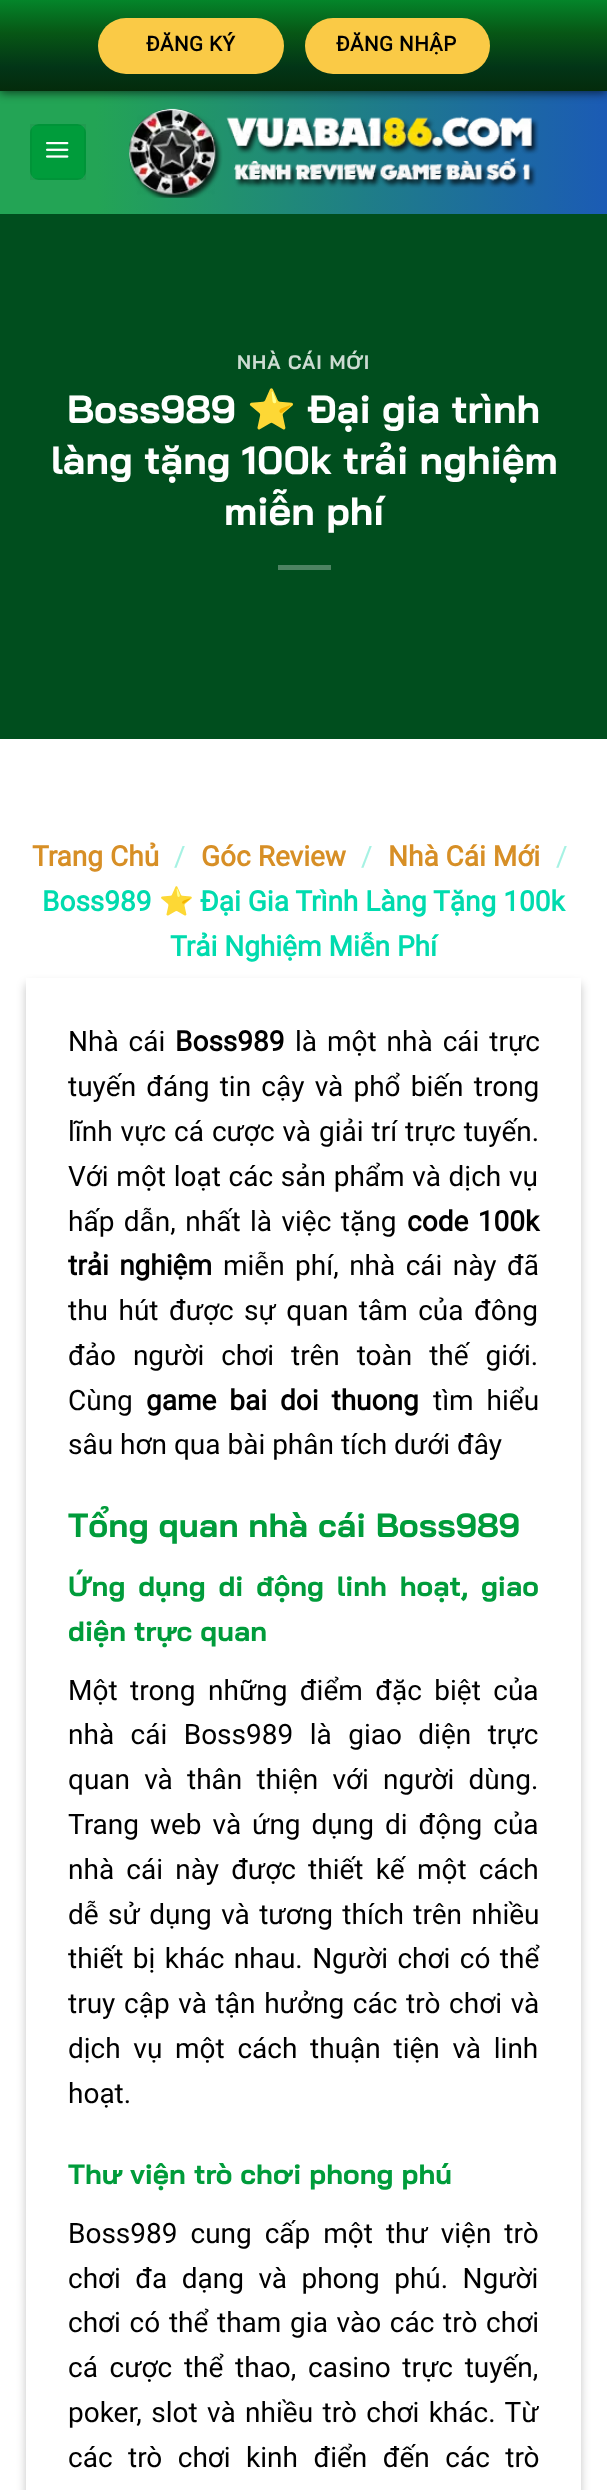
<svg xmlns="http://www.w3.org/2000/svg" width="607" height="2490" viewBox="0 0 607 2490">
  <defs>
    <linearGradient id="g1" gradientUnits="userSpaceOnUse" x1="-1" y1="158" x2="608" y2="147"><stop offset="0.16" stop-color="rgb(35,164,85)"/><stop offset="1" stop-color="rgb(27,91,181)"/></linearGradient>
    <linearGradient id="g2" gradientUnits="userSpaceOnUse" x1="304" y1="0" x2="304" y2="91"><stop offset="0" stop-color="rgb(4,133,42)"/><stop offset="0.36" stop-color="rgb(7,87,21)"/><stop offset="0.74" stop-color="rgb(2,53,23)"/><stop offset="1" stop-color="rgb(4,43,11)"/></linearGradient>
  </defs>
  <rect width="100%" height="100%" fill="rgb(0,78,30)"/>
  <rect x="0" y="91" width="607" height="123" fill="url(#g1)"/>
  <image x="129" y="108" width="410" height="90" href="pic2.png"/>
  <rect x="0" y="2" width="607" height="91" fill="rgba(0,0,0,0.6)" filter="blur(5px)"/>
  <rect x="0" y="0" width="607" height="91" fill="url(#g2)"/>
  <rect x="98" y="18" width="186" height="56" rx="28" fill="rgb(250,202,70)"/>
  <text x="146" y="51" font-family="Roboto" font-size="20.5" font-weight="bold" letter-spacing="0.5" fill="rgb(0,0,0)">ĐĂNG KÝ</text>
  <rect x="305" y="18" width="185" height="56" rx="28" fill="rgb(250,202,70)"/>
  <text x="336" y="51" font-family="Roboto" font-size="20.5" font-weight="bold" letter-spacing="0.5" fill="rgb(0,0,0)">ĐĂNG NHẬP</text>
  <rect x="30" y="124" width="56" height="56" rx="9" fill="rgb(0,156,59)"/>
  <rect x="31" y="125" width="54" height="54" fill="none" stroke="rgba(0,0,0,0.05)" stroke-width="2"/>
  <image x="46" y="142" width="23" height="16" href="pic1.png"/>
  <text x="237" y="369" font-family="Bai Jamjuree" font-size="19.5" font-weight="bold" letter-spacing="1" fill="rgb(204,220,210)">NHÀ CÁI MỚI</text>
  <text x="67" y="423" font-family="Bai Jamjuree" font-size="39.25" font-weight="bold" fill="rgb(255,255,255)">Boss989</text>
  <text x="247" y="423" font-family="Noto Color Emoji" font-size="39.25" font-weight="bold" fill="rgb(255,255,255)">⭐️</text>
  <g font-family="Bai Jamjuree" font-size="39.25" font-weight="bold" fill="rgb(255,255,255)">
    <text x="307" y="423">Đại gia trình</text>
    <text x="51" y="474">làng tặng 100k trải nghiệm</text>
    <text x="224" y="525">miễn phí</text>
  </g>
  <rect x="278" y="565" width="53" height="5" fill="rgb(77,131,98)"/>
  <rect x="0" y="739" width="607" height="1751" fill="rgb(255,255,255)"/>
  <text x="32" y="866" font-family="Roboto" font-size="28" font-weight="bold" fill="rgb(215,143,38)">Trang Chủ</text>
  <text x="174" y="866" font-family="Roboto" font-size="28" fill="rgb(166,242,227)">/</text>
  <text x="201" y="866" font-family="Roboto" font-size="28" font-weight="bold" fill="rgb(215,143,38)">Góc Review</text>
  <text x="361" y="866" font-family="Roboto" font-size="28" fill="rgb(166,242,227)">/</text>
  <text x="388" y="866" font-family="Roboto" font-size="28" font-weight="bold" fill="rgb(215,143,38)">Nhà Cái Mới</text>
  <text x="556" y="866" font-family="Roboto" font-size="28" fill="rgb(166,242,227)">/</text>
  <text x="42" y="911" font-family="Roboto" font-size="28" font-weight="bold" fill="rgb(0,219,174)">Boss989</text>
  <text x="159" y="911" font-family="Noto Color Emoji" font-size="28" font-weight="bold" fill="rgb(0,219,174)">⭐️</text>
  <g font-family="Roboto" font-size="28" font-weight="bold" fill="rgb(0,219,174)">
    <text x="200" y="911">Đại Gia Trình Làng Tặng 100k</text>
    <text x="170" y="956">Trải Nghiệm Miễn Phí</text>
  </g>
  <rect x="26" y="984" width="555" height="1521" fill="rgba(0,0,0,0.23)" filter="blur(5px)"/>
  <rect x="26" y="978" width="555" height="1512" fill="rgb(255,255,255)"/>
  <text x="68" y="1051" word-spacing="3" font-family="Roboto" font-size="28" fill="rgb(0,0,0)">Nhà cái</text>
  <text x="175" y="1051" font-family="Roboto" font-size="28" font-weight="bold" fill="rgb(0,0,0)">Boss989</text>
  <g font-family="Roboto" font-size="28" fill="rgb(0,0,0)">
    <text x="295" y="1051" word-spacing="3">là một nhà cái trực</text>
    <text>
      <tspan x="68" y="1096" word-spacing="3.25">tuyến đáng tin cậy và phổ biến trong</tspan>
      <tspan x="68" y="1141" word-spacing="1">lĩnh vực cá cược và giải trí trực tuyến.</tspan>
      <tspan x="68" y="1186" word-spacing="0.75">Với một loạt các sản phẩm và dịch vụ</tspan>
      <tspan x="68" y="1231" word-spacing="2.5">hấp dẫn, nhất là việc tặng</tspan>
    </text>
  </g>
  <g font-family="Roboto" font-size="28" font-weight="bold" fill="rgb(0,0,0)">
    <text x="407" y="1231" word-spacing="2.5">code 100k</text>
    <text x="68" y="1275" word-spacing="3.5">trải nghiệm</text>
  </g>
  <g font-family="Roboto" font-size="28" fill="rgb(0,0,0)">
    <text x="223" y="1275" word-spacing="3.5">miễn phí, nhà cái này đã</text>
    <text>
      <tspan x="68" y="1320" word-spacing="3.5">thu hút được sự quan tâm của đông</tspan>
      <tspan x="68" y="1365" word-spacing="10">đảo người chơi trên toàn thế giới.</tspan>
      <tspan x="68" y="1410">Cùng</tspan>
    </text>
  </g>
  <text x="146" y="1410" word-spacing="6" font-family="Roboto" font-size="28" font-weight="bold" fill="rgb(0,0,0)">game bai doi thuong</text>
  <g font-family="Roboto" font-size="28" fill="rgb(0,0,0)">
    <text x="433" y="1410" word-spacing="6">tìm hiểu</text>
    <text x="68" y="1454">sâu hơn qua bài phân tích dưới đây</text>
  </g>
  <text x="68" y="1537" font-family="Bai Jamjuree" font-size="33.6" font-weight="bold" fill="rgb(0,156,59)">Tổng quan nhà cái Boss989</text>
  <g font-family="Bai Jamjuree" font-size="28" font-weight="bold" fill="rgb(0,156,59)">
    <text>
      <tspan x="68" y="1596" word-spacing="4.75">Ứng dụng di động linh hoạt, giao</tspan>
      <tspan x="68" y="1641">diện trực quan</tspan>
    </text>
  </g>
  <g font-family="Roboto" font-size="28" fill="rgb(0,0,0)">
    <text>
      <tspan x="68" y="1700" word-spacing="5.5">Một trong những điểm đặc biệt của</tspan>
      <tspan x="68" y="1744" word-spacing="9.5">nhà cái Boss989 là giao diện trực</tspan>
      <tspan x="68" y="1789" word-spacing="7.25">quan và thân thiện với người dùng.</tspan>
      <tspan x="68" y="1834" word-spacing="4">Trang web và ứng dụng di động của</tspan>
      <tspan x="68" y="1879" word-spacing="5.25">nhà cái này được thiết kế một cách</tspan>
      <tspan x="68" y="1924" word-spacing="2.5">dễ sử dụng và tương thích trên nhiều</tspan>
      <tspan x="68" y="1968" word-spacing="2.5">thiết bị khác nhau. Người chơi có thể</tspan>
      <tspan x="68" y="2013" word-spacing="1.75">truy cập và tận hưởng các trò chơi và</tspan>
      <tspan x="68" y="2058" word-spacing="5.75">dịch vụ một cách thuận tiện và linh</tspan>
      <tspan x="68" y="2103">hoạt.</tspan>
    </text>
  </g>
  <text x="68" y="2184" font-family="Bai Jamjuree" font-size="28" font-weight="bold" fill="rgb(0,156,59)">Thư viện trò chơi phong phú</text>
  <g font-family="Roboto" font-size="28" fill="rgb(0,0,0)">
    <text>
      <tspan x="68" y="2243" word-spacing="6">Boss989 cung cấp một thư viện trò</tspan>
      <tspan x="68" y="2288" word-spacing="7.5">chơi đa dạng và phong phú. Người</tspan>
      <tspan x="68" y="2332" word-spacing="1.75">chơi có thể tham gia vào các trò chơi</tspan>
      <tspan x="68" y="2377" word-spacing="4.75">cá cược thể thao, casino trực tuyến,</tspan>
      <tspan x="68" y="2422" word-spacing="2.5">poker, slot và nhiều trò chơi khác. Từ</tspan>
      <tspan x="68" y="2467" word-spacing="8.5">các trò chơi kinh điển đến các trò</tspan>
    </text>
  </g>
</svg>
